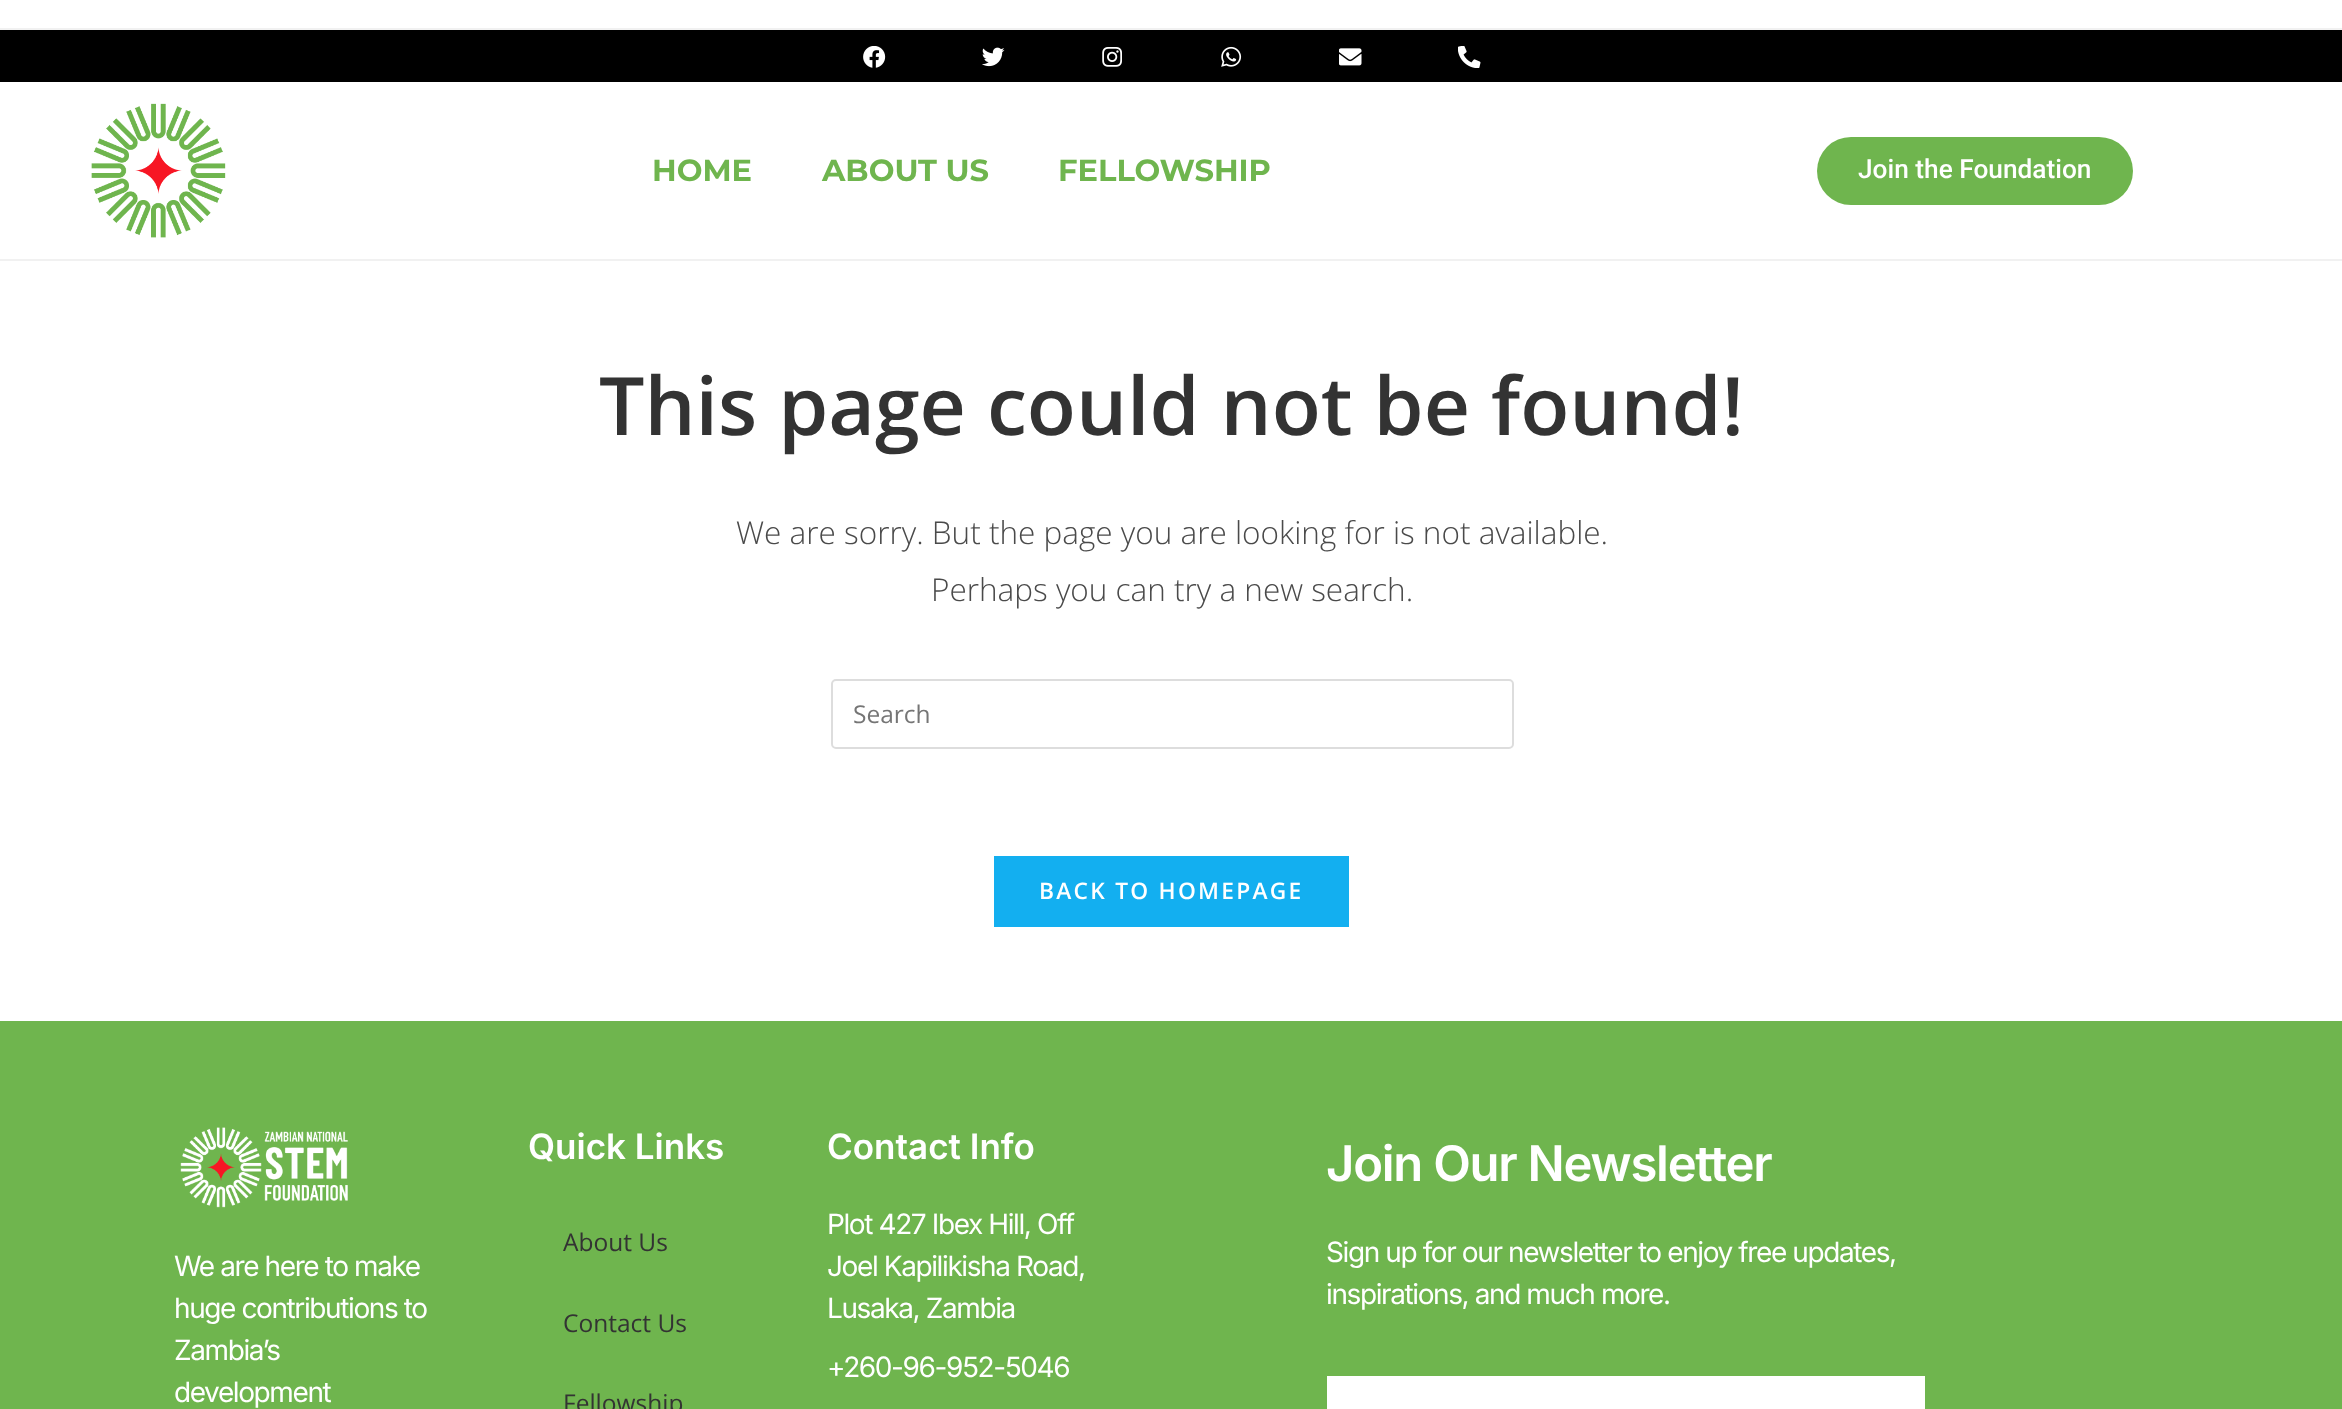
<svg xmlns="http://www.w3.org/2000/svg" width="2342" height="1409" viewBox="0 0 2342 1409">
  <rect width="100%" height="100%" fill="rgb(255,255,255)"/>
  <rect x="0" y="28" width="2342" height="2" fill="rgb(241,241,241)"/>
  <rect x="0" y="259" width="2342" height="2" fill="rgb(241,241,241)"/>
  <rect x="0" y="30" width="2342" height="52" fill="rgb(0,0,0)"/>
  <image x="863" y="46" width="23" height="22" href="pic1.png"/>
  <image x="982" y="47" width="23" height="20" href="pic2.png"/>
  <image x="1102" y="47" width="20" height="20" href="pic3.png"/>
  <image x="1221" y="46" width="21" height="21" href="pic4.png"/>
  <image x="1339" y="48" width="23" height="18" href="pic5.png"/>
  <image x="1458" y="46" width="23" height="22" href="pic6.png"/>
  <image x="91" y="103" width="135" height="135" href="pic7.png"/>
  <g font-family="Montserrat" font-size="30.5" font-weight="bold" fill="rgb(111,181,78)">
    <text x="652" y="181">HOME</text>
    <text x="822" y="181">ABOUT US</text>
    <text x="1058" y="181">FELLOWSHIP</text>
  </g>
  <rect x="1817" y="137" width="316" height="68" rx="34" fill="rgb(111,181,78)"/>
  <text x="1858" y="178" font-family="Roboto" font-size="26.25" font-weight="500" fill="rgb(255,255,255)">Join the Foundation</text>
  <text x="599" y="435" font-family="Open Sans" font-size="80.5" font-weight="600" fill="rgb(51,51,51)">This page could not be found!</text>
  <g font-family="Open Sans" font-size="31.5" font-weight="300" fill="rgb(74,74,74)">
    <text x="736" y="544">We are sorry. But the page you are looking for is not available.</text>
    <text x="931" y="601">Perhaps you can try a new search.</text>
  </g>
  <rect x="832" y="680" width="681" height="68" rx="4" fill="none" stroke="rgb(221,221,221)" stroke-width="2"/>
  <text x="853" y="723" font-family="Open Sans" font-size="24.5" fill="rgb(117,117,117)">Search</text>
  <rect x="994" y="856" width="355" height="71" fill="rgb(19,175,240)"/>
  <text x="1039" y="899" font-family="Open Sans" font-size="22.75" font-weight="600" letter-spacing="2.25" fill="rgb(255,255,255)">BACK TO HOMEPAGE</text>
  <rect x="0" y="1021" width="2342" height="388" fill="rgb(111,181,78)"/>
  <text x="528" y="1159" font-family="Inter" font-size="35" font-weight="600" fill="rgb(255,255,255)">Quick Links</text>
  <g font-family="Open Sans" font-size="24.5" fill="rgb(51,51,51)">
    <text x="563" y="1251">About Us</text>
    <text x="563" y="1332">Contact Us</text>
    <text x="563" y="1412">Fellowship</text>
  </g>
  <text x="827" y="1159" font-family="Inter" font-size="35" font-weight="600" fill="rgb(255,255,255)">Contact Info</text>
  <g font-family="Inter" font-size="28" letter-spacing="-1.4" fill="rgb(255,255,255)">
    <text>
      <tspan x="827" y="1234">Plot 427 Ibex Hill, Off</tspan>
      <tspan x="827" y="1276">Joel Kapilikisha Road,</tspan>
      <tspan x="827" y="1318">Lusaka, Zambia</tspan>
    </text>
    <text x="827" y="1377">+260-96-952-5046</text>
  </g>
  <text x="1326" y="1181" font-family="Inter" font-size="49" font-weight="600" letter-spacing="-1.25" fill="rgb(255,255,255)">Join Our Newsletter</text>
  <g font-family="Inter" font-size="28" letter-spacing="-1.4" fill="rgb(255,255,255)">
    <text>
      <tspan x="1326" y="1262">Sign up for our newsletter to enjoy free updates,</tspan>
      <tspan x="1326" y="1304">inspirations, and much more.</tspan>
    </text>
  </g>
  <rect x="1327" y="1376" width="598" height="33" fill="rgb(255,255,255)"/>
  <image x="180" y="1127" width="168" height="81" href="pic8.png"/>
  <g font-family="Inter" font-size="28" letter-spacing="-1.4" fill="rgb(255,255,255)">
    <text>
      <tspan x="174" y="1276">We are here to make</tspan>
      <tspan x="174" y="1318">huge contributions to</tspan>
      <tspan x="174" y="1360">Zambia’s</tspan>
      <tspan x="174" y="1402">development</tspan>
    </text>
  </g>
</svg>
